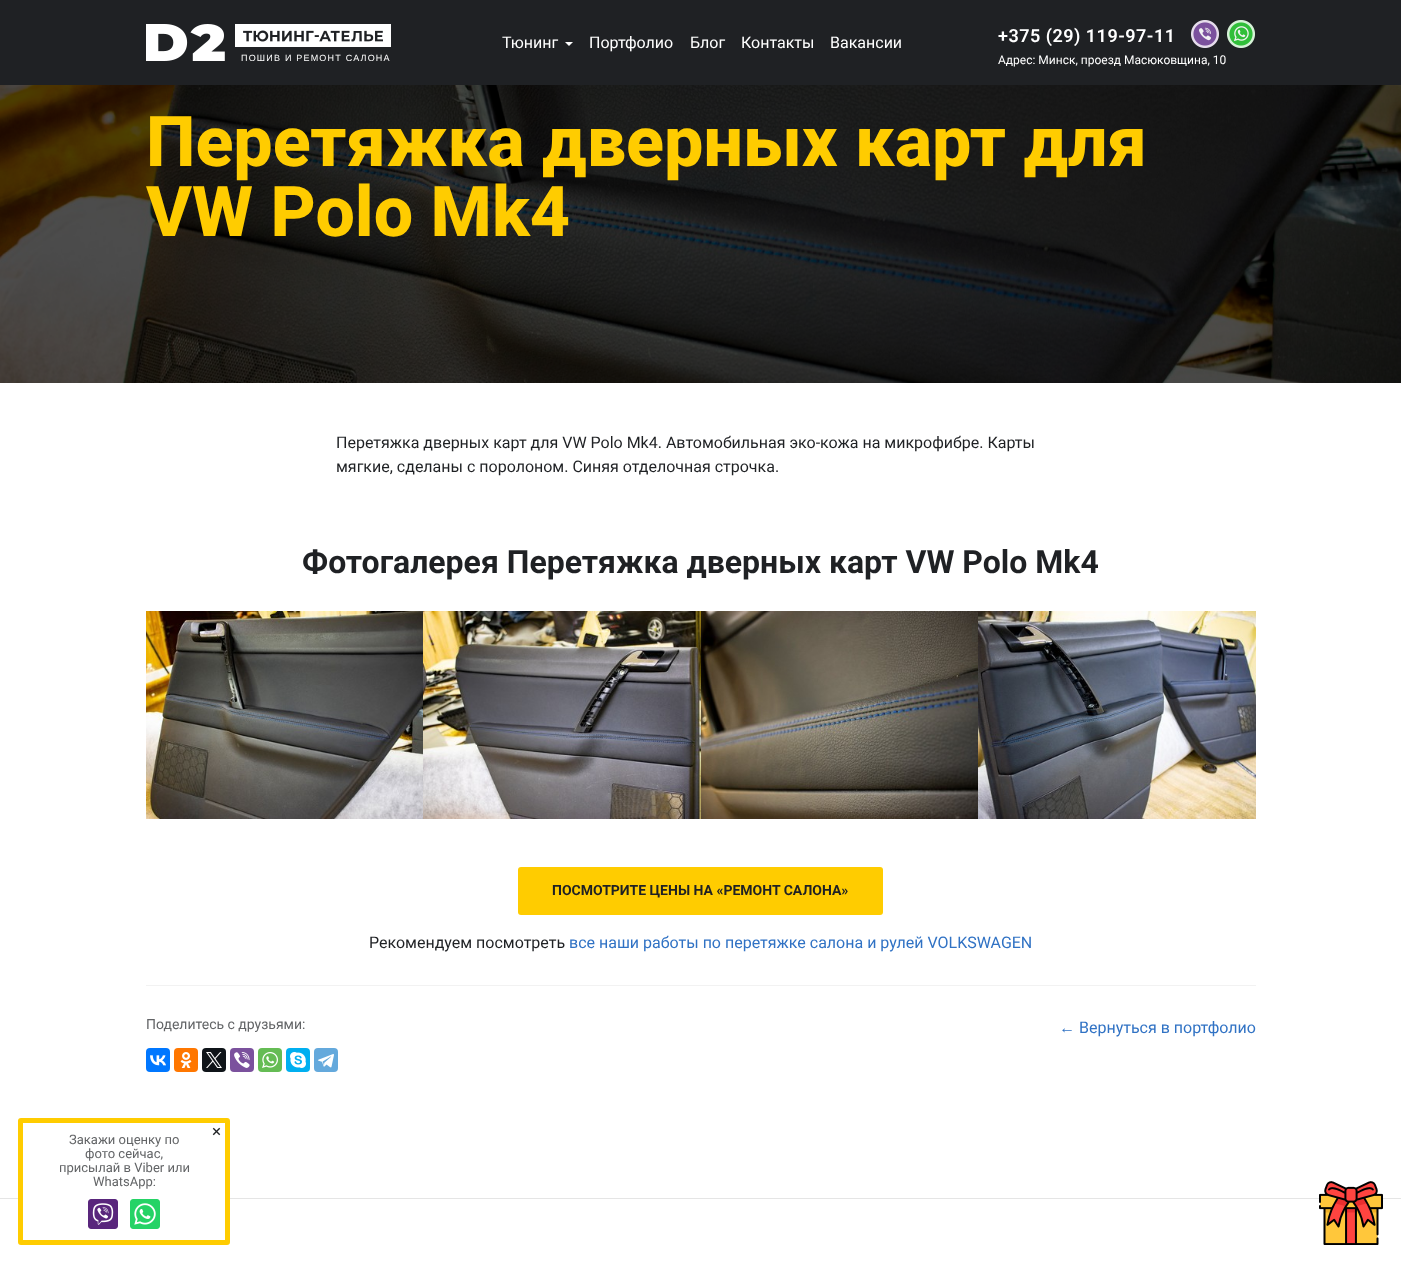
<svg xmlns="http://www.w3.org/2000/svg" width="1401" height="1263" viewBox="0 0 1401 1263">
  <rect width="100%" height="100%" fill="rgb(255,255,255)"/>
  <rect x="0" y="0" width="1401" height="85" fill="rgb(31,33,36)"/>
  <image x="146" y="24" width="245" height="37" href="pic1.png"/>
  <text x="241" y="61" font-family="Liberation Sans" font-size="9" letter-spacing="1.2" fill="rgb(255,255,255)">ПОШИВ И РЕМОНТ САЛОНА</text>
  <text x="502" y="48" font-family="Roboto" font-size="16" fill="rgb(255,255,255)">Тюнинг</text>
  <path d="M565 42H573L569 46Z" fill="rgb(255,255,255)"/>
  <g font-family="Roboto" font-size="16" fill="rgb(255,255,255)">
    <text x="589" y="48">Портфолио</text>
    <text x="690" y="48">Блог</text>
    <text x="741" y="48">Контакты</text>
    <text x="830" y="48">Вакансии</text>
  </g>
  <text x="998" y="42" font-family="Roboto" font-size="18" font-weight="600" letter-spacing="0.5" fill="rgb(255,255,255)">+375 (29) 119-97-11</text>
  <image x="1191" y="20" width="28" height="28" href="pic2.png"/>
  <image x="1227" y="20" width="28" height="28" href="pic3.png"/>
  <text x="998" y="64" font-family="Roboto" font-size="12" fill="rgb(255,255,255)">Адрес: Минск, проезд Масюковщина, 10</text>
  <image x="0" y="85" width="1401" height="298" href="pic4.png"/>
  <g font-family="Roboto" font-size="70" font-weight="800" fill="rgb(255,204,0)">
    <text>
      <tspan x="146" y="166">Перетяжка дверных карт для</tspan>
      <tspan x="146" y="236">VW Polo Mk4</tspan>
    </text>
  </g>
  <g font-family="Roboto" font-size="16" fill="rgb(31,33,36)">
    <text>
      <tspan x="336" y="448">Перетяжка дверных карт для VW Polo Mk4. Автомобильная эко-кожа на микрофибре. Карты</tspan>
      <tspan x="336" y="472">мягкие, сделаны с поролоном. Синяя отделочная строчка.</tspan>
    </text>
  </g>
  <text x="302" y="573" font-family="Roboto" font-size="32" font-weight="bold" fill="rgb(31,33,36)">Фотогалерея Перетяжка дверных карт VW Polo Mk4</text>
  <image x="146" y="611" width="277" height="208" href="pic5.png"/>
  <image x="423" y="611" width="278" height="208" href="pic6.png"/>
  <image x="701" y="611" width="277" height="208" href="pic7.png"/>
  <image x="978" y="611" width="278" height="208" href="pic8.png"/>
  <rect x="518" y="867" width="365" height="48" rx="3" fill="rgb(255,204,0)"/>
  <text x="552" y="895" font-family="Roboto" font-size="14" font-weight="bold" fill="rgb(31,33,36)">ПОСМОТРИТЕ ЦЕНЫ НА «РЕМОНТ САЛОНА»</text>
  <text x="369" y="948" font-family="Roboto" font-size="16" fill="rgb(31,33,36)">Рекомендуем посмотреть</text>
  <text x="569" y="948" font-family="Roboto" font-size="16" fill="rgb(48,114,196)">все наши работы по перетяжке салона и рулей VOLKSWAGEN</text>
  <rect x="146" y="985" width="1110" height="1" fill="rgb(242,242,242)"/>
  <text x="146" y="1029" font-family="Roboto" font-size="14" fill="rgb(98,100,102)">Поделитесь с друзьями:</text>
  <rect x="146" y="1048" width="24" height="24" rx="4" fill="rgb(0,119,255)"/>
  <image x="150" y="1055" width="16" height="11" href="pic9.png"/>
  <rect x="174" y="1048" width="24" height="24" rx="4" fill="rgb(255,119,0)"/>
  <image x="180" y="1052" width="12" height="16" href="pic10.png"/>
  <rect x="202" y="1048" width="24" height="24" rx="4" fill="rgb(15,20,25)"/>
  <image x="206" y="1052" width="16" height="16" href="pic11.png"/>
  <rect x="230" y="1048" width="24" height="24" rx="4" fill="rgb(123,81,157)"/>
  <image x="234" y="1052" width="16" height="16" href="pic12.png"/>
  <rect x="258" y="1048" width="24" height="24" rx="4" fill="rgb(101,188,84)"/>
  <image x="262" y="1052" width="16" height="16" href="pic13.png"/>
  <rect x="286" y="1048" width="24" height="24" rx="4" fill="rgb(0,175,240)"/>
  <image x="290" y="1052" width="16" height="16" href="pic14.png"/>
  <rect x="314" y="1048" width="24" height="24" rx="4" fill="rgb(100,169,220)"/>
  <image x="318" y="1054" width="16" height="14" href="pic15.png"/>
  <text x="1059" y="1033" font-family="Liberation Sans" font-size="16" fill="rgb(48,114,196)">←</text>
  <text x="1079" y="1033" font-family="Roboto" font-size="16" fill="rgb(48,114,196)">Вернуться в портфолио</text>
  <rect x="0" y="1198" width="1401" height="1" fill="rgb(229,229,229)"/>
  <rect x="20.5" y="1120.5" width="207" height="122" rx="0.5" fill="rgb(255,255,255)" stroke="rgb(255,204,0)" stroke-width="5"/>
  <text x="212" y="1137" font-family="Roboto" font-size="17" fill="rgb(31,33,36)">×</text>
  <g font-family="Roboto" font-size="13" fill="rgb(98,100,102)">
    <text x="69" y="1144">Закажи оценку по</text>
    <text x="85" y="1158">фото сейчас,</text>
    <text x="59" y="1172">присылай в Viber или</text>
    <text x="93" y="1186">WhatsApp:</text>
  </g>
  <image x="88" y="1199" width="30" height="30" href="pic16.png"/>
  <image x="130" y="1199" width="30" height="30" href="pic17.png"/>
  <image x="1319" y="1181" width="64" height="64" href="pic18.png"/>
</svg>
